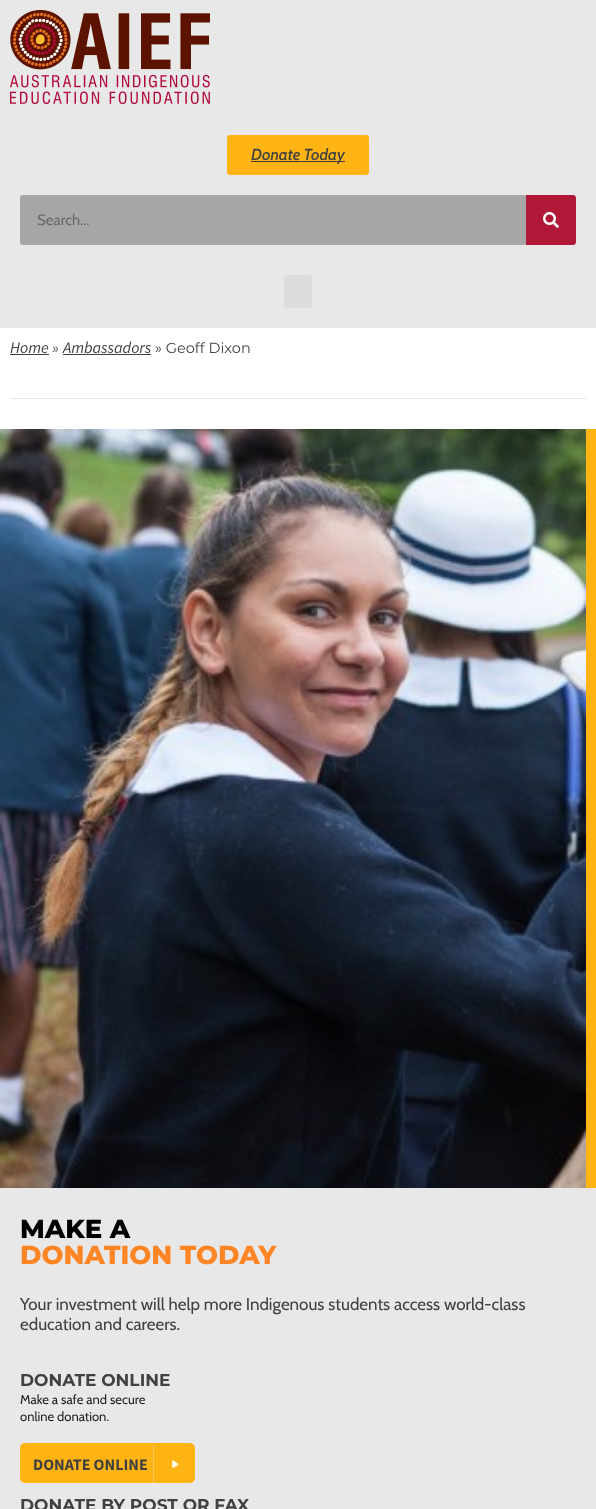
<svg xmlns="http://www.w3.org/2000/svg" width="596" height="1509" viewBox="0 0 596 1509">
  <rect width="100%" height="100%" fill="rgb(255,255,255)"/>
  <rect x="0" y="0" width="596" height="328" fill="rgb(232,232,232)"/>
  <image x="10" y="10" width="200" height="94" href="pic1.png"/>
  <rect x="227" y="135" width="142" height="40" rx="3" fill="rgb(255,180,20)"/>
  <rect x="251" y="161" width="94" height="1" fill="rgb(65,65,64)"/>
  <text x="251" y="160" font-family="Cabin" font-size="16" font-weight="500" font-style="italic" fill="rgb(65,65,64)">Donate Today</text>
  <rect x="20" y="195" width="556" height="50" rx="3" fill="rgb(167,166,166)"/>
  <text x="37" y="225" font-family="Cabin" font-size="15" fill="rgb(106,105,105)">Search...</text>
  <path d="M526 195H573C574.5 195 576 196.5 576 198V242C576 243.5 574.5 245 573 245H526Z" fill="rgb(178,25,56)"/>
  <image x="543" y="212" width="16" height="16" href="pic2.png"/>
  <rect x="284" y="275" width="28" height="33" rx="3" fill="rgb(220,220,220)"/>
  <text x="10" y="353" font-family="Source Sans Pro" font-size="16" font-style="italic" fill="rgb(65,65,64)">Home</text>
  <rect x="10" y="354" width="39" height="1" fill="rgb(65,65,64)"/>
  <text x="52" y="353" font-family="Montserrat" font-size="14.5" fill="rgb(65,65,64)">»</text>
  <text x="63" y="353" font-family="Source Sans Pro" font-size="16" font-style="italic" fill="rgb(65,65,64)">Ambassadors</text>
  <rect x="63" y="354" width="88" height="1" fill="rgb(65,65,64)"/>
  <text x="155" y="353" font-family="Montserrat" font-size="14.5" fill="rgb(65,65,64)">» Geoff Dixon</text>
  <rect x="10" y="398" width="576" height="1" fill="rgb(232,232,232)"/>
  <rect x="586" y="429" width="10" height="759" fill="rgb(255,180,20)"/>
  <image x="0" y="429" width="586" height="759" href="pic3.png"/>
  <rect x="0" y="1188" width="596" height="321" fill="rgb(232,232,232)"/>
  <text x="20" y="1238" font-family="Montserrat" font-size="26" font-weight="800" fill="rgb(0,0,0)">MAKE A</text>
  <text x="20" y="1264" font-family="Montserrat" font-size="26" font-weight="800" fill="rgb(255,133,37)">DONATION TODAY</text>
  <g font-family="Cabin" font-size="17" fill="rgb(65,65,64)">
    <text>
      <tspan x="20" y="1310">Your investment will help more Indigenous students access world-class</tspan>
      <tspan x="20" y="1330">education and careers.</tspan>
    </text>
  </g>
  <text x="20" y="1386" font-family="Montserrat" font-size="17" font-weight="bold" fill="rgb(65,65,64)">DONATE ONLINE</text>
  <g font-family="Cabin" font-size="13" fill="rgb(30,30,30)">
    <text>
      <tspan x="20" y="1404">Make a safe and secure</tspan>
      <tspan x="20" y="1421">online donation.</tspan>
    </text>
  </g>
  <rect x="20" y="1443" width="175" height="40" rx="5" fill="rgb(255,180,20)"/>
  <image x="153" y="1445" width="26" height="38" href="pic4.png"/>
  <text x="33" y="1470" font-family="Source Sans Pro" font-size="16" font-weight="bold" fill="rgb(65,65,64)">DONATE ONLINE</text>
  <text x="20" y="1511" font-family="Montserrat" font-size="17" font-weight="bold" fill="rgb(65,65,64)">DONATE BY POST OR FAX</text>
</svg>
